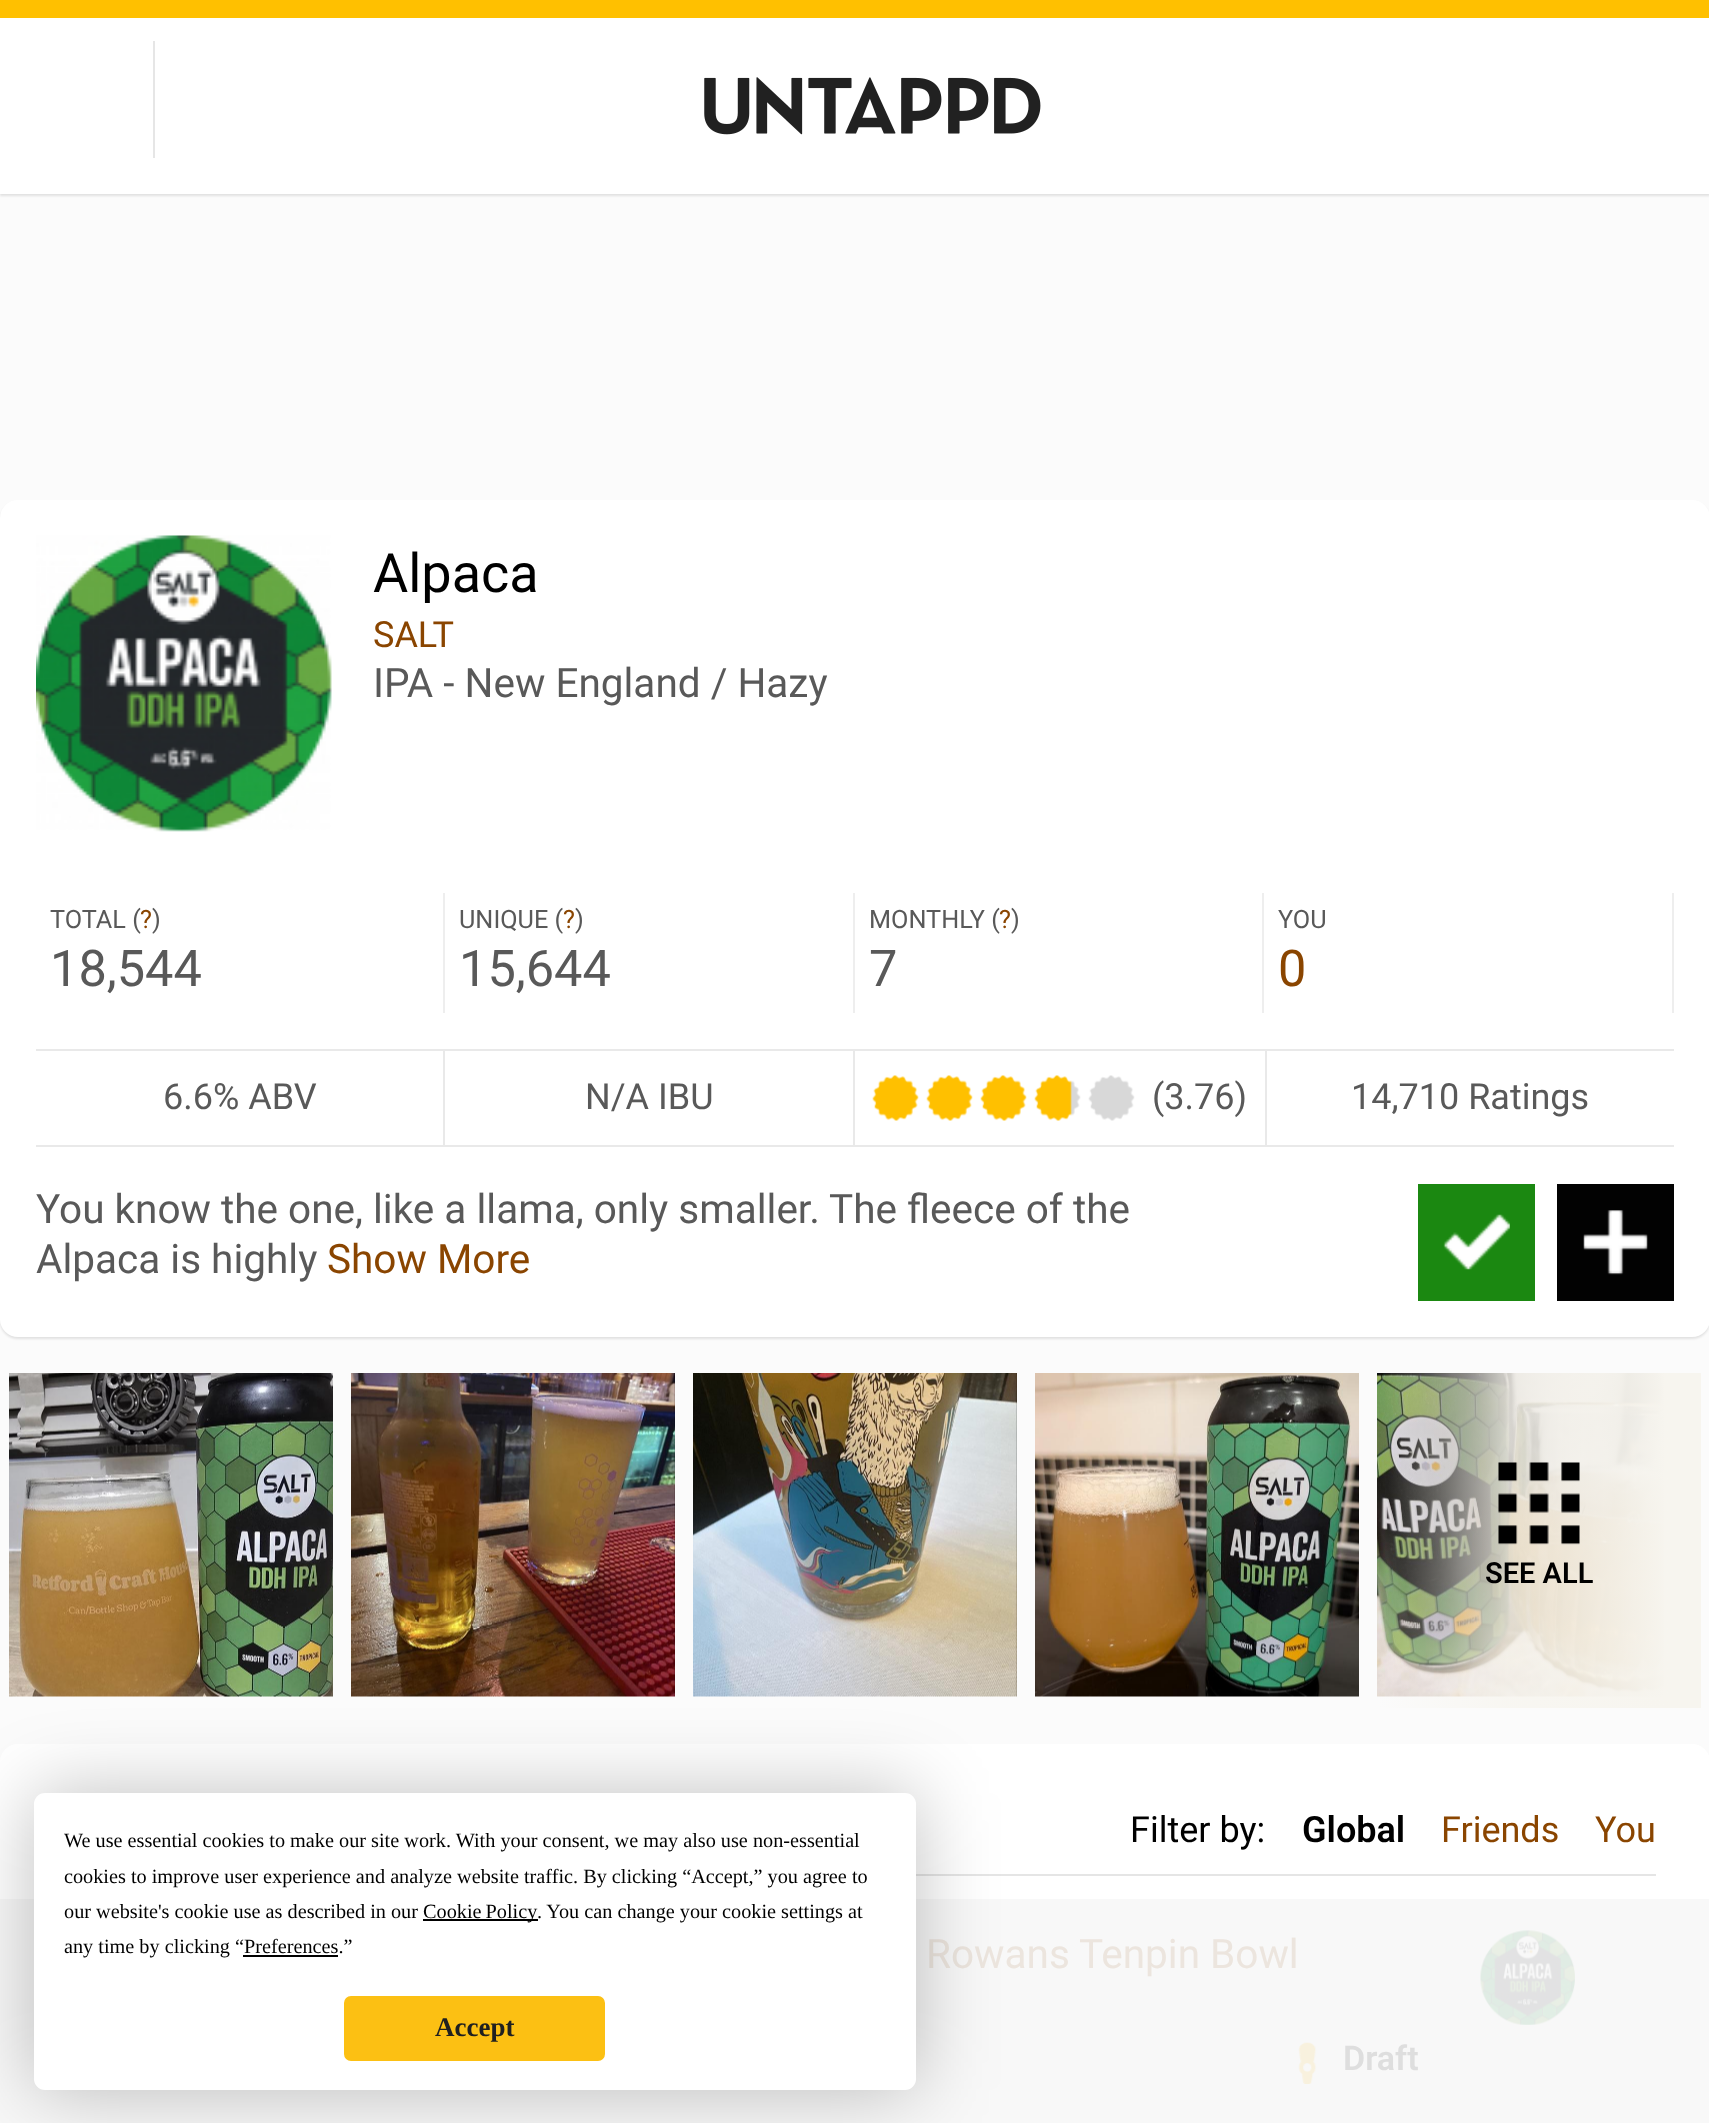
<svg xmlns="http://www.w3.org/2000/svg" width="1709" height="2123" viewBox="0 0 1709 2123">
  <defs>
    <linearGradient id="g1" gradientUnits="userSpaceOnUse" x1="1377" y1="1540" x2="1701" y2="1540"><stop offset="0" stop-color="rgb(247,245,239)" stop-opacity="0"/><stop offset="0.4" stop-color="rgb(247,245,239)" stop-opacity="0.8"/><stop offset="0.9" stop-color="rgb(247,245,239)"/></linearGradient>
  </defs>
  <rect width="100%" height="100%" fill="rgb(251,251,251)"/>
  <rect x="0" y="2" width="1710" height="194" fill="rgba(0,0,0,0.1)" filter="blur(1px)"/>
  <rect x="0" y="18" width="1709" height="176" fill="rgb(255,255,255)"/>
  <rect x="0" y="0" width="1709" height="18" fill="rgb(255,192,0)"/>
  <rect x="153" y="41" width="2" height="117" fill="rgb(230,230,230)"/>
  <image x="704" y="77" width="337" height="58" href="pic1.png"/>
  <rect x="0" y="502" width="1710" height="837" rx="18" fill="rgba(0,0,0,0.1)" filter="blur(1px)"/>
  <rect x="0" y="500" width="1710" height="837" rx="18" fill="rgb(255,255,255)"/>
  <image x="36" y="535" width="296" height="297" href="pic2.png"/>
  <text x="373" y="592" font-family="Roboto" font-size="54" fill="rgb(0,0,0)">Alpaca</text>
  <text x="373" y="647" font-family="Roboto" font-size="36" fill="rgb(138,69,0)">SALT</text>
  <text x="373" y="697" font-family="Roboto" font-size="40.5" fill="rgb(89,89,89)">IPA - New England / Hazy</text>
  <rect x="443" y="893" width="2" height="120" fill="rgb(238,238,238)"/>
  <text x="50" y="928" font-family="Roboto" font-size="25.25" fill="rgb(89,89,89)">TOTAL (</text>
  <text x="140" y="928" font-family="Roboto" font-size="25.25" fill="rgb(138,69,0)">?</text>
  <text x="152" y="928" font-family="Roboto" font-size="25.25" fill="rgb(89,89,89)">)</text>
  <text x="50" y="986" font-family="Roboto" font-size="50.5" fill="rgb(89,89,89)">18,544</text>
  <rect x="853" y="893" width="2" height="120" fill="rgb(238,238,238)"/>
  <text x="459" y="928" font-family="Roboto" font-size="25.25" fill="rgb(89,89,89)">UNIQUE (</text>
  <text x="563" y="928" font-family="Roboto" font-size="25.25" fill="rgb(138,69,0)">?</text>
  <text x="575" y="928" font-family="Roboto" font-size="25.25" fill="rgb(89,89,89)">)</text>
  <text x="459" y="986" font-family="Roboto" font-size="50.5" fill="rgb(89,89,89)">15,644</text>
  <rect x="1262" y="893" width="2" height="120" fill="rgb(238,238,238)"/>
  <text x="869" y="928" font-family="Roboto" font-size="25.25" fill="rgb(89,89,89)">MONTHLY (</text>
  <text x="999" y="928" font-family="Roboto" font-size="25.25" fill="rgb(138,69,0)">?</text>
  <text x="1011" y="928" font-family="Roboto" font-size="25.25" fill="rgb(89,89,89)">)</text>
  <text x="869" y="986" font-family="Roboto" font-size="50.5" fill="rgb(89,89,89)">7</text>
  <rect x="1672" y="893" width="2" height="120" fill="rgb(238,238,238)"/>
  <text x="1278" y="928" font-family="Roboto" font-size="25.25" fill="rgb(89,89,89)">YOU</text>
  <text x="1278" y="986" font-family="Roboto" font-size="50.5" fill="rgb(138,69,0)">0</text>
  <rect x="36" y="1049" width="1638" height="2" fill="rgb(233,233,233)"/>
  <rect x="36" y="1145" width="1638" height="2" fill="rgb(233,233,233)"/>
  <rect x="443" y="1051" width="2" height="94" fill="rgb(233,233,233)"/>
  <text x="163" y="1109" font-family="Roboto" font-size="36" fill="rgb(89,89,89)">6.6% ABV</text>
  <rect x="853" y="1051" width="2" height="94" fill="rgb(233,233,233)"/>
  <text x="585" y="1109" font-family="Roboto" font-size="36" fill="rgb(89,89,89)">N/A IBU</text>
  <image x="872" y="1075" width="47" height="46" href="pic3.png"/>
  <image x="926" y="1075" width="47" height="46" href="pic4.png"/>
  <image x="980" y="1075" width="47" height="46" href="pic3.png"/>
  <image x="1034" y="1075" width="47" height="46" href="pic5.png"/>
  <image x="1088" y="1075" width="47" height="46" href="pic6.png"/>
  <rect x="1265" y="1051" width="2" height="94" fill="rgb(233,233,233)"/>
  <g font-family="Roboto" font-size="36" fill="rgb(89,89,89)">
    <text x="1152" y="1109">(3.76)</text>
    <text x="1351" y="1109">14,710 Ratings</text>
  </g>
  <g font-family="Roboto" font-size="40.5" fill="rgb(89,89,89)">
    <text>
      <tspan x="36" y="1223">You know the one, like a llama, only smaller. The fleece of the</tspan>
      <tspan x="36" y="1273">Alpaca is highly</tspan>
    </text>
  </g>
  <text x="327" y="1273" font-family="Roboto" font-size="40.5" fill="rgb(138,69,0)">Show More</text>
  <rect x="1418" y="1184" width="117" height="117" fill="rgb(27,136,17)"/>
  <image x="1443" y="1214" width="67" height="56" href="pic7.png"/>
  <rect x="1557" y="1184" width="117" height="117" fill="rgb(2,2,2)"/>
  <image x="1583" y="1210" width="65" height="65" href="pic8.png"/>
  <image x="9" y="1373" width="324" height="324" href="pic9.png"/>
  <image x="351" y="1373" width="324" height="324" href="pic10.png"/>
  <image x="693" y="1373" width="324" height="324" href="pic11.png"/>
  <image x="1035" y="1373" width="324" height="324" href="pic12.png"/>
  <image x="1377" y="1373" width="287" height="324" href="pic13.png"/>
  <rect x="1380" y="1373" width="321" height="335" fill="url(#g1)"/>
  <image x="1498" y="1462" width="82" height="83" href="pic14.png"/>
  <text x="1485" y="1583" font-family="Roboto" font-size="29" font-weight="600" fill="rgb(0,0,0)">SEE ALL</text>
  <rect x="0" y="1744" width="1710" height="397" rx="18" fill="rgb(255,255,255)"/>
  <rect x="0" y="1899" width="1709" height="224" fill="rgb(248,248,248)"/>
  <text x="1130" y="1842" font-family="Roboto" font-size="36" fill="rgb(0,0,0)">Filter by:</text>
  <text x="1302" y="1842" font-family="Roboto" font-size="36" font-weight="600" fill="rgb(0,0,0)">Global</text>
  <g font-family="Roboto" font-size="36" fill="rgb(138,69,0)">
    <text x="1441" y="1842">Friends</text>
    <text x="1595" y="1842">You</text>
  </g>
  <rect x="916" y="1874" width="740" height="2" fill="rgb(229,229,229)"/>
  <text x="926" y="1968" font-family="Roboto" font-size="40.5" fill="rgb(236,229,222)">Rowans Tenpin Bowl</text>
  <image x="1480" y="1930" width="95" height="95" href="pic15.png"/>
  <image x="1298" y="2042" width="19" height="42" href="pic16.png"/>
  <text x="1343" y="2070" font-family="Roboto" font-size="34" font-weight="600" fill="rgb(222,222,222)">Draft</text>
  <rect x="34" y="1793" width="882" height="297" rx="11" fill="rgba(0,0,0,0.25)" filter="blur(39.5px)"/>
  <rect x="34" y="1793" width="882" height="297" rx="11" fill="rgb(255,255,255)"/>
  <g font-family="Liberation Serif" font-size="20.25" fill="rgb(0,0,0)">
    <text>
      <tspan x="64" y="1847">We use essential cookies to make our site work. With your consent, we may also use non-essential</tspan>
      <tspan x="64" y="1883">cookies to improve user experience and analyze website traffic. By clicking “Accept,” you agree to</tspan>
      <tspan x="64" y="1918">our website's cookie use as described in our</tspan>
    </text>
  </g>
  <rect x="423" y="1919" width="115" height="2" fill="rgb(0,0,0)"/>
  <g font-family="Liberation Serif" font-size="20.25" fill="rgb(0,0,0)">
    <text x="423" y="1918" word-spacing="-1">Cookie Policy</text>
    <text x="537" y="1918">. You can change your cookie settings at</text>
    <text x="64" y="1953">any time by clicking “Preferences.”</text>
  </g>
  <rect x="243" y="1955" width="95" height="2" fill="rgb(0,0,0)"/>
  <rect x="345" y="1997" width="259" height="63" rx="6" fill="rgb(252,192,19)" stroke="rgb(252,192,19)" stroke-width="2"/>
  <text x="435" y="2036" font-family="Liberation Serif" font-size="27" font-weight="bold" fill="rgb(32,32,32)">Accept</text>
</svg>
